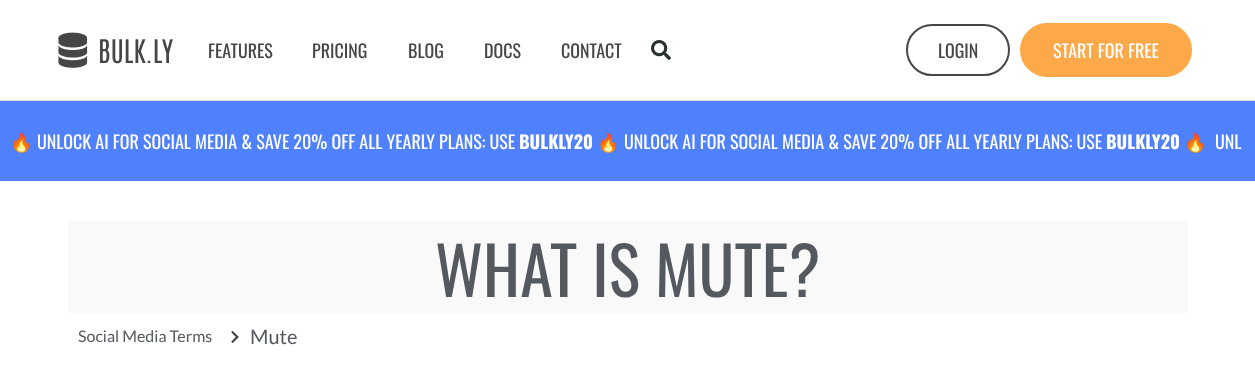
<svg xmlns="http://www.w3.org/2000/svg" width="1255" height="366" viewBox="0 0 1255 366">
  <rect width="100%" height="100%" fill="rgb(255,255,255)"/>
  <rect x="0" y="100" width="1255" height="1" fill="rgb(218,218,221)"/>
  <image x="58" y="32" width="115" height="36" href="pic1.png"/>
  <g font-family="Oswald" font-size="18" fill="rgb(70,70,70)">
    <text x="208" y="58">FEATURES</text>
    <text x="312" y="58">PRICING</text>
    <text x="408" y="58">BLOG</text>
    <text x="484" y="58">DOCS</text>
    <text x="561" y="58">CONTACT</text>
  </g>
  <image x="651" y="40" width="20" height="20" href="pic2.png"/>
  <rect x="907" y="25" width="102" height="50" rx="25" fill="none" stroke="rgb(70,70,70)" stroke-width="2"/>
  <text x="938" y="58" font-family="Oswald" font-size="18" fill="rgb(70,70,70)">LOGIN</text>
  <rect x="1021.5" y="24.5" width="169" height="51" rx="25.5" fill="rgb(253,169,73)" stroke="rgb(253,169,73)" stroke-width="3"/>
  <text x="1053" y="58" font-family="Oswald" font-size="18" fill="rgb(255,255,255)">START FOR FREE</text>
  <rect x="0" y="101" width="1255" height="80" fill="rgb(80,129,252)"/>
  <text x="10" y="149" font-family="Noto Color Emoji" font-size="18" fill="rgb(255,255,255)">️‍🔥</text>
  <text x="37" y="149" font-family="Oswald" font-size="18" fill="rgb(255,255,255)">UNLOCK AI FOR SOCIAL MEDIA &amp; SAVE 20% OFF ALL YEARLY PLANS: USE</text>
  <text x="519" y="149" font-family="Oswald" font-size="18" font-weight="bold" fill="rgb(255,255,255)">BULKLY20</text>
  <g font-family="Oswald" font-size="18" fill="rgb(255,255,255)">
    <text x="597" y="149">️‍🔥</text>
    <text x="624" y="149">UNLOCK AI FOR SOCIAL MEDIA &amp; SAVE 20% OFF ALL YEARLY PLANS: USE</text>
  </g>
  <text x="1106" y="149" font-family="Oswald" font-size="18" font-weight="bold" fill="rgb(255,255,255)">BULKLY20</text>
  <g font-family="Oswald" font-size="18" fill="rgb(255,255,255)">
    <text x="1184" y="149">️‍🔥</text>
    <text x="1215" y="149">UNL</text>
  </g>
  <rect x="68" y="221" width="1120" height="92" fill="rgb(249,249,249)"/>
  <text x="435" y="297" font-family="Oswald" font-size="66" fill="rgb(84,89,95)">WHAT IS MUTE?</text>
  <text x="78" y="342" font-family="Lato" font-size="16" fill="rgb(84,89,95)">Social Media Terms</text>
  <image x="231" y="331" width="8" height="12" href="pic3.png"/>
  <text x="250" y="344" font-family="Lato" font-size="20" fill="rgb(84,89,95)">Mute</text>
</svg>
